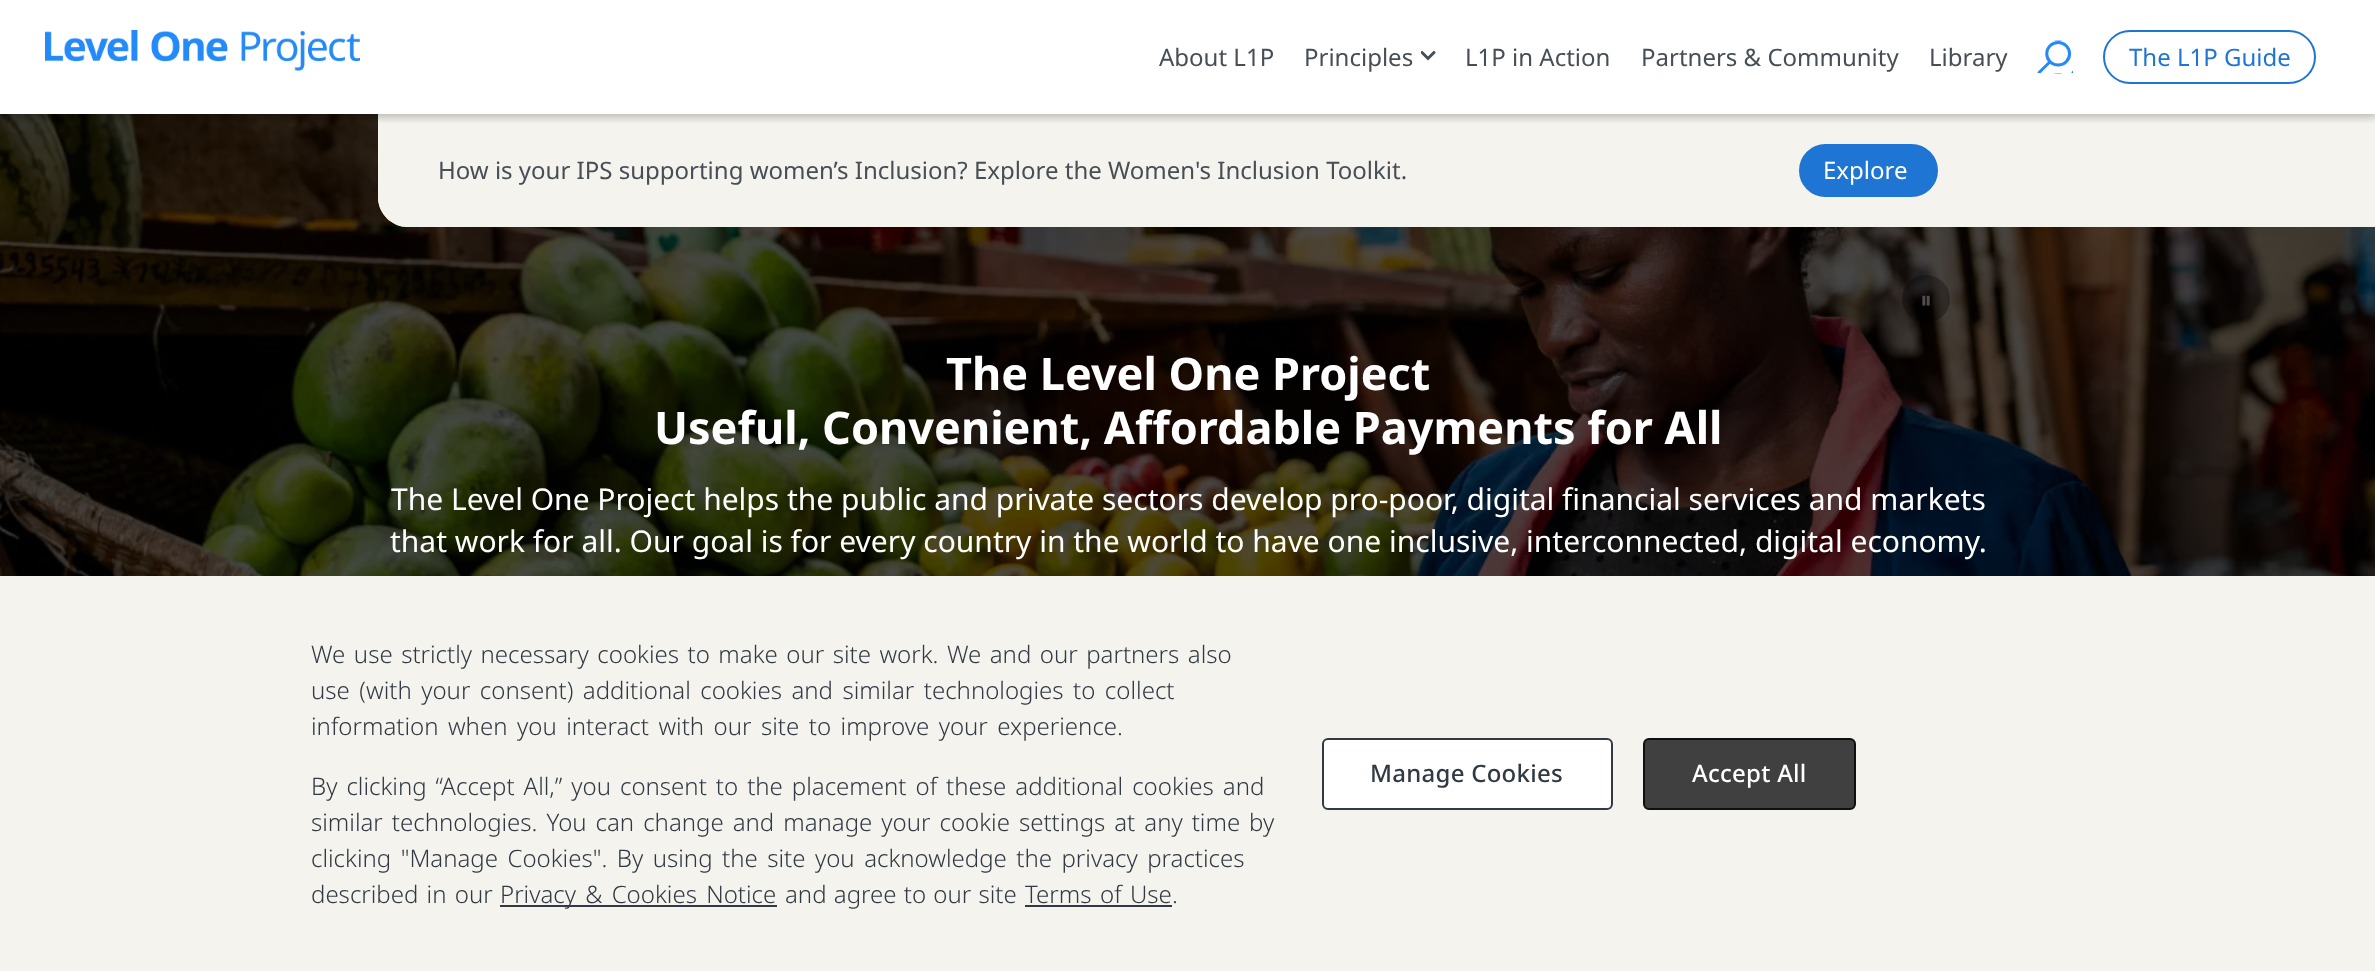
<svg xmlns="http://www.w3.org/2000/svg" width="2375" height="971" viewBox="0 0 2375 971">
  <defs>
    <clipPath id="clip1"><rect x="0" y="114" width="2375" height="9"/></clipPath>
    <clipPath id="clip2"><rect x="1421" y="51" width="15" height="11"/></clipPath>
  </defs>
  <rect width="100%" height="100%" fill="rgb(255,255,255)"/>
  <image x="0" y="114" width="2375" height="462" href="pic3.png"/>
  <path d="M378 114H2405V227H408C391.5 227 378 213.5 378 197Z" fill="rgb(245,243,237)"/>
  <path d="M378 114H1998V227H408C391.5 227 378 213.5 378 197Z" fill="rgb(245,243,237)"/>
  <g clip-path="url(#clip1)">
    <rect x="0" y="3" width="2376" height="114" fill="rgba(0,0,0,0.25)" filter="blur(4.5px)"/>
  </g>
  <image x="45" y="30" width="315" height="41" href="pic1.png"/>
  <g font-family="Noto Sans" font-size="24" fill="rgb(71,78,86)">
    <text x="1159" y="66">About L1P</text>
    <text x="1304" y="66">Principles</text>
  </g>
  <g clip-path="url(#clip2)">
    <path d="M1422 52.5L1428 58.5L1434 52.5" fill="none" stroke="rgb(71,78,86)" stroke-width="3" stroke-linecap="round"/>
  </g>
  <g font-family="Noto Sans" font-size="24" fill="rgb(71,78,86)">
    <text x="1465" y="66">L1P in Action</text>
    <text x="1641" y="66">Partners &amp; Community</text>
    <text x="1929" y="66">Library</text>
  </g>
  <image x="2037" y="40" width="36" height="34" href="pic2.png"/>
  <rect x="2104" y="31" width="211" height="52" rx="26" fill="none" stroke="rgb(31,117,212)" stroke-width="2"/>
  <text x="2129" y="66" font-family="Noto Sans" font-size="24" fill="rgb(31,117,212)">The L1P Guide</text>
  <text x="438" y="179" font-family="Noto Sans" font-size="24" fill="rgb(71,78,86)">How is your IPS supporting women’s Inclusion? Explore the Women's Inclusion Toolkit.</text>
  <rect x="1800" y="145" width="137" height="51" rx="25.5" fill="rgb(31,117,212)" stroke="rgb(31,117,212)" stroke-width="2"/>
  <text x="1823" y="179" font-family="Noto Sans" font-size="24" fill="rgb(255,255,255)">Explore</text>
  <circle cx="1926" cy="299" r="24" fill="rgba(0,0,0,0.3)"/>
  <text x="1920" y="308" font-family="FreeSans" font-size="24" fill="rgb(80,78,77)">⏸</text>
  <g font-family="Noto Sans" font-size="45" font-weight="bold" fill="rgb(255,255,255)">
    <text x="946" y="390">The Level One Project</text>
    <text x="654" y="444">Useful, Convenient, Affordable Payments for All</text>
  </g>
  <g font-family="Noto Sans" font-size="30" fill="rgb(255,255,255)">
    <text x="391" y="510">The Level One Project helps the public and private sectors develop pro-poor, digital financial services and markets</text>
    <text x="390" y="552">that work for all. Our goal is for every country in the world to have one inclusive, interconnected, digital economy.</text>
  </g>
  <rect x="0" y="576" width="2375" height="395" fill="rgb(245,243,237)"/>
  <g font-family="Noto Sans" font-size="24" font-weight="300" fill="rgb(49,58,68)">
    <text>
      <tspan x="311" y="663" word-spacing="2.25">We use strictly necessary cookies to make our site work. We and our partners also</tspan>
      <tspan x="311" y="699" word-spacing="3.25">use (with your consent) additional cookies and similar technologies to collect</tspan>
      <tspan x="311" y="735" word-spacing="3.25">information when you interact with our site to improve your experience.</tspan>
    </text>
    <text>
      <tspan x="311" y="795" word-spacing="2.75">By clicking “Accept All,” you consent to the placement of these additional cookies and</tspan>
      <tspan x="311" y="831" word-spacing="2.75">similar technologies. You can change and manage your cookie settings at any time by</tspan>
      <tspan x="311" y="867" word-spacing="3.25">clicking "Manage Cookies". By using the site you acknowledge the privacy practices</tspan>
      <tspan x="311" y="903" word-spacing="2">described in our</tspan>
    </text>
  </g>
  <rect x="500" y="905" width="277" height="2" fill="rgb(49,58,68)"/>
  <g font-family="Noto Sans" font-size="24" font-weight="300" fill="rgb(49,58,68)">
    <text x="500" y="903" word-spacing="3">Privacy &amp; Cookies Notice</text>
    <text x="785" y="903" word-spacing="1">and agree to our site</text>
    <text x="1025" y="903" word-spacing="2.25">Terms of Use</text>
  </g>
  <rect x="1025" y="905" width="147" height="2" fill="rgb(49,58,68)"/>
  <text x="1172" y="903" font-family="Noto Sans" font-size="24" font-weight="300" fill="rgb(49,58,68)">.</text>
  <rect x="1323" y="739" width="289" height="70" rx="5" fill="rgb(255,255,255)" stroke="rgb(49,58,68)" stroke-width="2"/>
  <text x="1370" y="782" font-family="Noto Sans" font-size="24" font-weight="500" letter-spacing="0.25" fill="rgb(49,58,68)">Manage Cookies</text>
  <rect x="1644" y="739" width="211" height="70" rx="5" fill="rgb(64,64,64)" stroke="rgb(15,15,15)" stroke-width="2"/>
  <text x="1692" y="782" font-family="Noto Sans" font-size="24" font-weight="500" letter-spacing="0.25" fill="rgb(255,255,255)">Accept All</text>
</svg>
